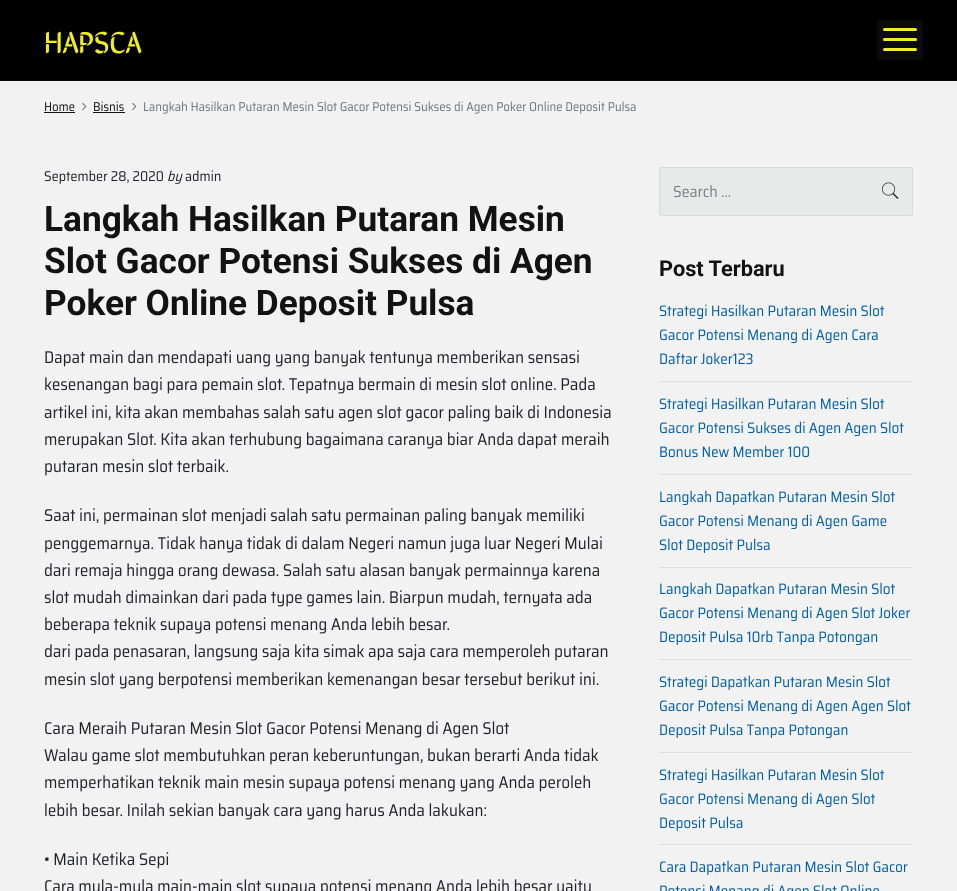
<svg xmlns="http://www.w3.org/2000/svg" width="957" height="891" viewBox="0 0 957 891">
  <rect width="100%" height="100%" fill="rgb(242,242,242)"/>
  <rect x="0" y="0" width="957" height="80" fill="rgb(0,0,0)"/>
  <text x="44" y="53" font-family="SirinStencil" font-size="30.5" fill="rgb(238,238,34)">HAPSCA</text>
  <rect x="877" y="20" width="46" height="40" rx="3" fill="rgb(11,11,11)"/>
  <rect x="883" y="38" width="34" height="3" rx="1.5" fill="rgb(238,238,34)"/>
  <rect x="883" y="28" width="34" height="3" rx="1.5" fill="rgb(238,238,34)"/>
  <rect x="883" y="48" width="34" height="3" rx="1.5" fill="rgb(238,238,34)"/>
  <rect x="0" y="80" width="957" height="1" fill="rgb(5,8,9)"/>
  <image x="45" y="102" width="30" height="10" href="pic1.png"/>
  <rect x="44" y="112" width="31" height="1" fill="rgb(20,20,20)"/>
  <image x="82" y="102" width="5" height="9" href="pic2.png"/>
  <image x="94" y="101" width="30" height="11" href="pic3.png"/>
  <rect x="93" y="112" width="32" height="1" fill="rgb(20,20,20)"/>
  <image x="132" y="102" width="5" height="9" href="pic2.png"/>
  <image x="144" y="101" width="492" height="13" href="pic4.png"/>
  <image x="44" y="170" width="119" height="14" href="pic5.png"/>
  <image x="168" y="170" width="15" height="14" href="pic6.png"/>
  <image x="185" y="170" width="36" height="12" href="pic7.png"/>
  <g font-family="Roboto" font-size="35.25" font-weight="bold" fill="rgb(18,18,18)">
    <text>
      <tspan x="44" y="231">Langkah Hasilkan Putaran Mesin</tspan>
      <tspan x="44" y="273">Slot Gacor Potensi Sukses di Agen</tspan>
      <tspan x="44" y="315">Poker Online Deposit Pulsa</tspan>
    </text>
  </g>
  <image x="45" y="350" width="534" height="17" href="pic8.png"/>
  <image x="45" y="377" width="550" height="17" href="pic9.png"/>
  <image x="44" y="405" width="567" height="17" href="pic10.png"/>
  <image x="45" y="432" width="564" height="17" href="pic11.png"/>
  <image x="45" y="459" width="183" height="17" href="pic12.png"/>
  <image x="44" y="508" width="540" height="17" href="pic13.png"/>
  <image x="45" y="536" width="557" height="17" href="pic14.png"/>
  <image x="44" y="563" width="555" height="17" href="pic15.png"/>
  <image x="44" y="590" width="547" height="17" href="pic16.png"/>
  <image x="45" y="617" width="405" height="17" href="pic17.png"/>
  <image x="44" y="644" width="564" height="17" href="pic18.png"/>
  <image x="45" y="672" width="554" height="17" href="pic19.png"/>
  <image x="45" y="721" width="464" height="17" href="pic20.png"/>
  <image x="44" y="748" width="555" height="17" href="pic21.png"/>
  <image x="45" y="775" width="546" height="17" href="pic22.png"/>
  <image x="45" y="803" width="441" height="17" href="pic23.png"/>
  <image x="45" y="852" width="124" height="17" href="pic24.png"/>
  <image x="45" y="879" width="546" height="12" href="pic25.png"/>
  <rect x="659.5" y="167.5" width="253" height="48" rx="1.5" fill="rgb(232,233,233)" stroke="rgb(217,219,219)"/>
  <image x="673" y="185" width="58" height="13" href="pic26.png"/>
  <image x="882" y="182" width="17" height="17" href="pic27.png"/>
  <text x="659" y="276" font-family="Roboto" font-size="21.75" font-weight="bold" fill="rgb(18,18,18)">Post Terbaru</text>
  <rect x="659" y="381" width="254" height="1" fill="rgb(222,223,224)"/>
  <image x="659" y="304" width="226" height="16" href="pic28.png"/>
  <image x="660" y="328" width="218" height="16" href="pic29.png"/>
  <image x="660" y="352" width="93" height="13" href="pic30.png"/>
  <rect x="659" y="474" width="254" height="1" fill="rgb(222,223,224)"/>
  <image x="659" y="397" width="226" height="16" href="pic28.png"/>
  <image x="660" y="421" width="244" height="16" href="pic31.png"/>
  <image x="660" y="445" width="150" height="13" href="pic32.png"/>
  <rect x="659" y="567" width="254" height="1" fill="rgb(222,223,224)"/>
  <image x="660" y="490" width="235" height="16" href="pic33.png"/>
  <image x="660" y="514" width="227" height="16" href="pic34.png"/>
  <image x="659" y="538" width="111" height="15" href="pic35.png"/>
  <rect x="659" y="659" width="254" height="1" fill="rgb(222,223,224)"/>
  <image x="660" y="582" width="235" height="16" href="pic33.png"/>
  <image x="660" y="606" width="251" height="16" href="pic36.png"/>
  <image x="660" y="630" width="218" height="16" href="pic37.png"/>
  <rect x="659" y="752" width="254" height="1" fill="rgb(222,223,224)"/>
  <image x="659" y="675" width="232" height="16" href="pic38.png"/>
  <image x="660" y="699" width="251" height="16" href="pic39.png"/>
  <image x="660" y="723" width="188" height="16" href="pic40.png"/>
  <rect x="659" y="844" width="254" height="1" fill="rgb(222,223,224)"/>
  <image x="659" y="768" width="226" height="16" href="pic28.png"/>
  <image x="660" y="792" width="215" height="16" href="pic41.png"/>
  <image x="660" y="816" width="83" height="15" href="pic42.png"/>
  <image x="660" y="860" width="248" height="15" href="pic43.png"/>
  <image x="660" y="884" width="219" height="7" href="pic44.png"/>
</svg>
